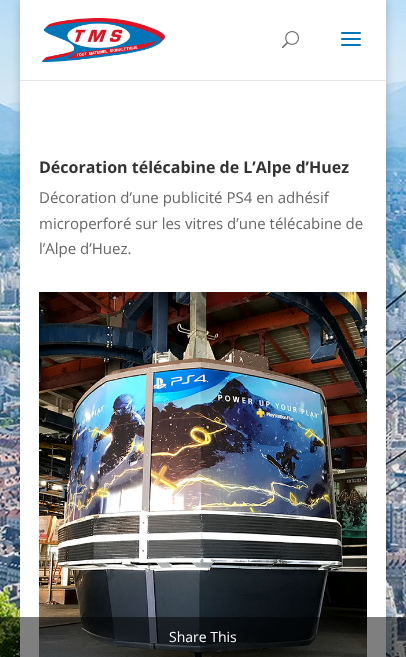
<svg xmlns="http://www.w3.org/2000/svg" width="406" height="657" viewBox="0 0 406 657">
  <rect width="100%" height="100%" fill="rgb(255,255,255)"/>
  <image x="0" y="0" width="406" height="657" href="pic1.png"/>
  <rect x="20" y="0" width="366" height="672" fill="rgba(0,0,0,0.2)" filter="blur(5px)"/>
  <rect x="20" y="80" width="366" height="1" fill="rgb(230,230,230)"/>
  <rect x="20" y="0" width="366" height="80" fill="rgb(255,255,255)"/>
  <image x="42" y="18" width="123" height="44" href="pic2.png"/>
  <image x="282" y="31" width="17" height="18" href="pic3.png"/>
  <image x="341" y="32" width="20" height="14" href="pic4.png"/>
  <rect x="20" y="81" width="366" height="576" fill="rgb(255,255,255)"/>
  <text x="39" y="173" font-family="Open Sans" font-size="16" font-weight="bold" fill="rgb(51,51,51)">Décoration télécabine de L’Alpe d’Huez</text>
  <g font-family="Open Sans" font-size="15" fill="rgb(102,102,102)">
    <text>
      <tspan x="39" y="203">Décoration d’une publicité PS4 en adhésif</tspan>
      <tspan x="39" y="229">microperforé sur les vitres d’une télécabine de</tspan>
      <tspan x="39" y="254">l’Alpe d’Huez.</tspan>
    </text>
  </g>
  <image x="39" y="292" width="328" height="365" href="pic5.png"/>
  <rect x="0" y="617" width="406" height="40" fill="rgba(0,0,0,0.5)"/>
  <text x="169" y="642" font-family="Open Sans" font-size="14" fill="rgb(255,255,255)">Share This</text>
</svg>
